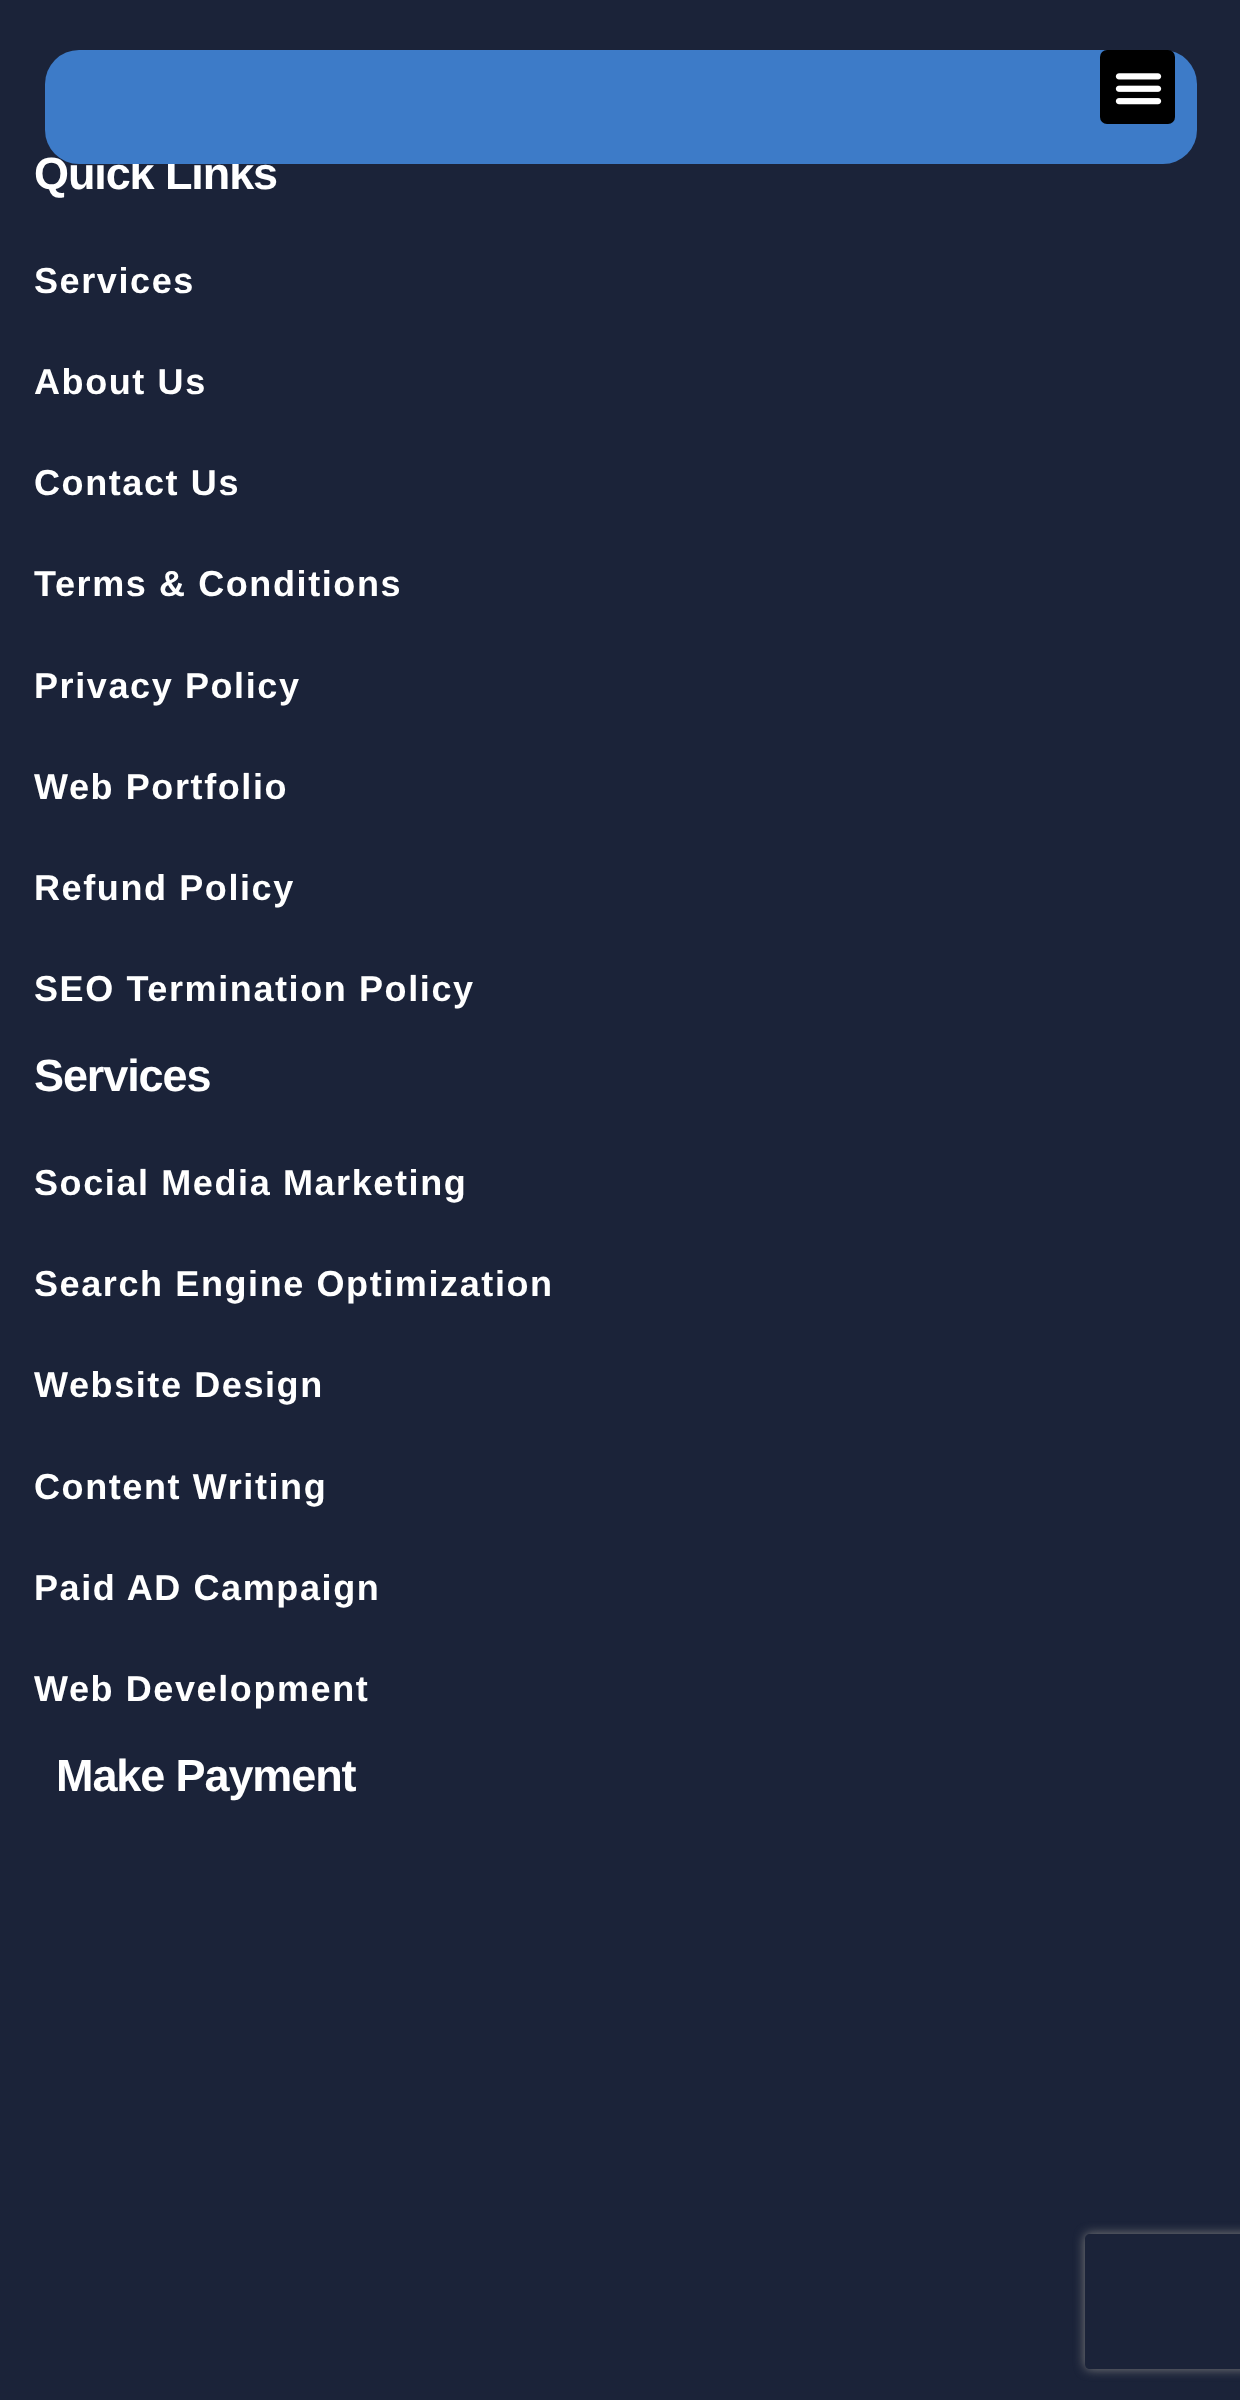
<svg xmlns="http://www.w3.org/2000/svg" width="1240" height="2400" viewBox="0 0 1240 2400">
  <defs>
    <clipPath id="clip1"><path d="M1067 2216H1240V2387H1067ZM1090 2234H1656C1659 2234 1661 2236 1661 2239V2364C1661 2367 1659 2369 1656 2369H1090C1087 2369 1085 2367 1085 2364V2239C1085 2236 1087 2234 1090 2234Z" clip-rule="evenodd"/></clipPath>
  </defs>
  <rect width="100%" height="100%" fill="rgb(27,35,57)"/>
  <text x="34" y="189" font-family="Liberation Sans" font-size="45" font-weight="bold" letter-spacing="-1.1" fill="rgb(255,255,255)">Quick Links</text>
  <rect x="45" y="50" width="1152" height="114" rx="34" fill="rgb(61,123,200)"/>
  <rect x="1100" y="50" width="75" height="74" rx="7" fill="rgb(0,0,0)"/>
  <image x="1115" y="73" width="47" height="32" href="pic1.png"/>
  <g font-family="Liberation Sans" font-size="36" font-weight="bold" letter-spacing="1.6" fill="rgb(255,255,255)">
    <text x="34" y="293">Services</text>
    <text x="34" y="394">About Us</text>
    <text x="34" y="495">Contact Us</text>
    <text x="34" y="596">Terms &amp; Conditions</text>
    <text x="34" y="698">Privacy Policy</text>
    <text x="34" y="799">Web Portfolio</text>
    <text x="34" y="900">Refund Policy</text>
    <text x="34" y="1001">SEO Termination Policy</text>
  </g>
  <text x="34" y="1091" font-family="Liberation Sans" font-size="45" font-weight="bold" letter-spacing="-1.1" fill="rgb(255,255,255)">Services</text>
  <g font-family="Liberation Sans" font-size="36" font-weight="bold" letter-spacing="1.6" fill="rgb(255,255,255)">
    <text x="34" y="1195">Social Media Marketing</text>
    <text x="34" y="1296">Search Engine Optimization</text>
    <text x="34" y="1397">Website Design</text>
    <text x="34" y="1499">Content Writing</text>
    <text x="34" y="1600">Paid AD Campaign</text>
    <text x="34" y="1701">Web Development</text>
  </g>
  <text x="56" y="1791" font-family="Liberation Sans" font-size="45" font-weight="bold" letter-spacing="-1.1" fill="rgb(255,255,255)">Make Payment</text>
  <g clip-path="url(#clip1)">
    <rect x="1085" y="2234" width="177" height="135" rx="5" fill="rgb(128,128,128)" filter="blur(5.5px)"/>
  </g>
</svg>
